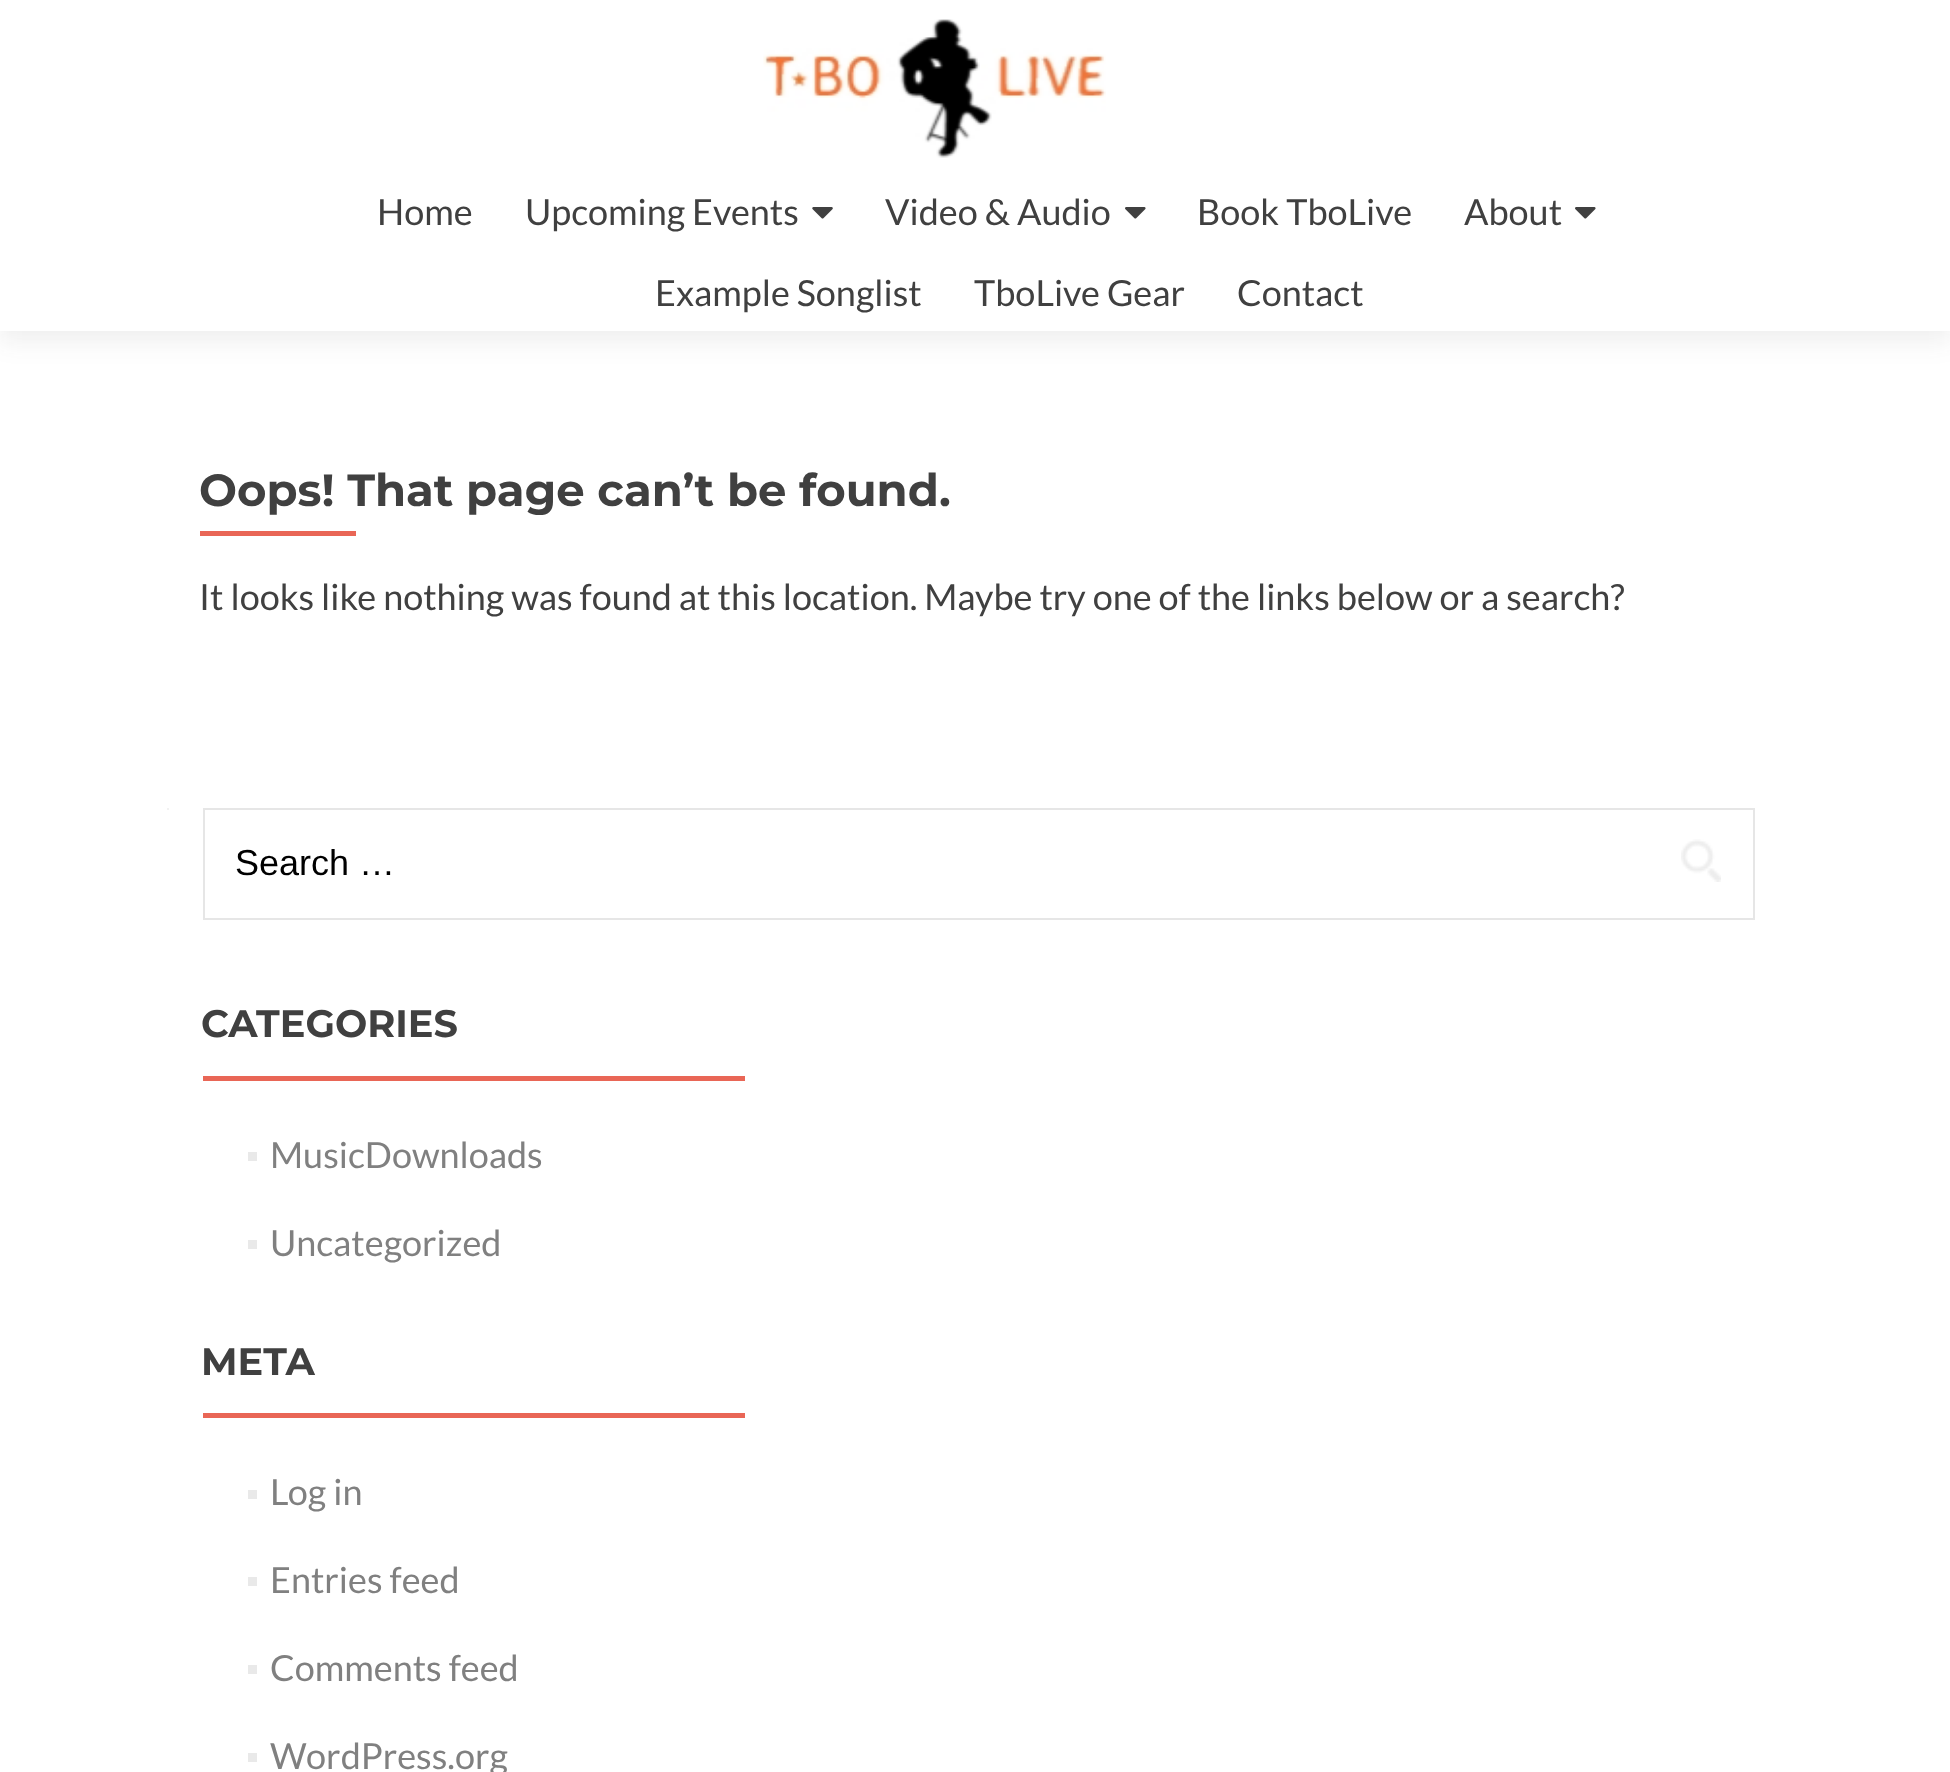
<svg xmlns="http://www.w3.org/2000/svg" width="1950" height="1772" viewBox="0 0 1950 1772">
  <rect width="100%" height="100%" fill="rgb(255,255,255)"/>
  <rect x="0" y="11" width="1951" height="331" fill="rgba(50,50,50,0.08)" filter="blur(12.5px)"/>
  <rect x="0" y="0" width="1950" height="331" fill="rgb(255,255,255)"/>
  <image x="763" y="19" width="343" height="139" href="pic1.png"/>
  <g font-family="Lato" font-size="36" fill="rgb(64,64,64)">
    <text x="377" y="225">Home</text>
    <text x="525" y="225">Upcoming Events</text>
  </g>
  <image x="812" y="207" width="21" height="12" href="pic2.png"/>
  <text x="885" y="225" font-family="Lato" font-size="36" fill="rgb(64,64,64)">Video &amp; Audio</text>
  <image x="1125" y="207" width="21" height="12" href="pic3.png"/>
  <g font-family="Lato" font-size="36" fill="rgb(64,64,64)">
    <text x="1197" y="225">Book TboLive</text>
    <text x="1464" y="225">About</text>
  </g>
  <image x="1575" y="207" width="21" height="12" href="pic3.png"/>
  <g font-family="Lato" font-size="36" fill="rgb(64,64,64)">
    <text x="655" y="306">Example Songlist</text>
    <text x="974" y="306">TboLive Gear</text>
    <text x="1237" y="306">Contact</text>
  </g>
  <text x="199" y="506" font-family="Montserrat" font-size="45" font-weight="bold" fill="rgb(64,64,64)">Oops! That page can’t be found.</text>
  <rect x="200" y="531" width="156" height="5" fill="rgb(233,102,86)"/>
  <text x="199" y="610" font-family="Lato" font-size="36" fill="rgb(64,64,64)">It looks like nothing was found at this location. Maybe try one of the links below or a search?</text>
  <rect x="167" y="808" width="2" height="2" fill="rgb(242,242,242)"/>
  <rect x="204" y="809" width="1550" height="110" fill="none" stroke="rgb(230,230,230)" stroke-width="2"/>
  <text x="235" y="875" font-family="Liberation Sans" font-size="36" fill="rgb(0,0,0)">Search …</text>
  <image x="1681" y="839" width="40" height="43" href="pic4.png"/>
  <text x="201" y="1037" font-family="Montserrat" font-size="38.25" font-weight="bold" fill="rgb(64,64,64)">CATEGORIES</text>
  <rect x="203" y="1076" width="542" height="5" fill="rgb(233,102,86)"/>
  <rect x="248" y="1152" width="9" height="9" fill="rgb(233,233,233)"/>
  <text x="270" y="1168" font-family="Lato" font-size="36" fill="rgb(128,128,128)">MusicDownloads</text>
  <rect x="248" y="1240" width="9" height="9" fill="rgb(233,233,233)"/>
  <text x="270" y="1256" font-family="Lato" font-size="36" fill="rgb(128,128,128)">Uncategorized</text>
  <text x="201" y="1375" font-family="Montserrat" font-size="38.25" font-weight="bold" fill="rgb(64,64,64)">META</text>
  <rect x="203" y="1413" width="542" height="5" fill="rgb(233,102,86)"/>
  <rect x="248" y="1490" width="9" height="9" fill="rgb(233,233,233)"/>
  <text x="270" y="1505" font-family="Lato" font-size="36" fill="rgb(128,128,128)">Log in</text>
  <rect x="248" y="1577" width="9" height="9" fill="rgb(233,233,233)"/>
  <text x="270" y="1593" font-family="Lato" font-size="36" fill="rgb(128,128,128)">Entries feed</text>
  <rect x="248" y="1665" width="9" height="9" fill="rgb(233,233,233)"/>
  <text x="270" y="1681" font-family="Lato" font-size="36" fill="rgb(128,128,128)">Comments feed</text>
  <rect x="248" y="1753" width="9" height="9" fill="rgb(233,233,233)"/>
  <text x="270" y="1769" font-family="Lato" font-size="36" fill="rgb(128,128,128)">WordPress.org</text>
</svg>
